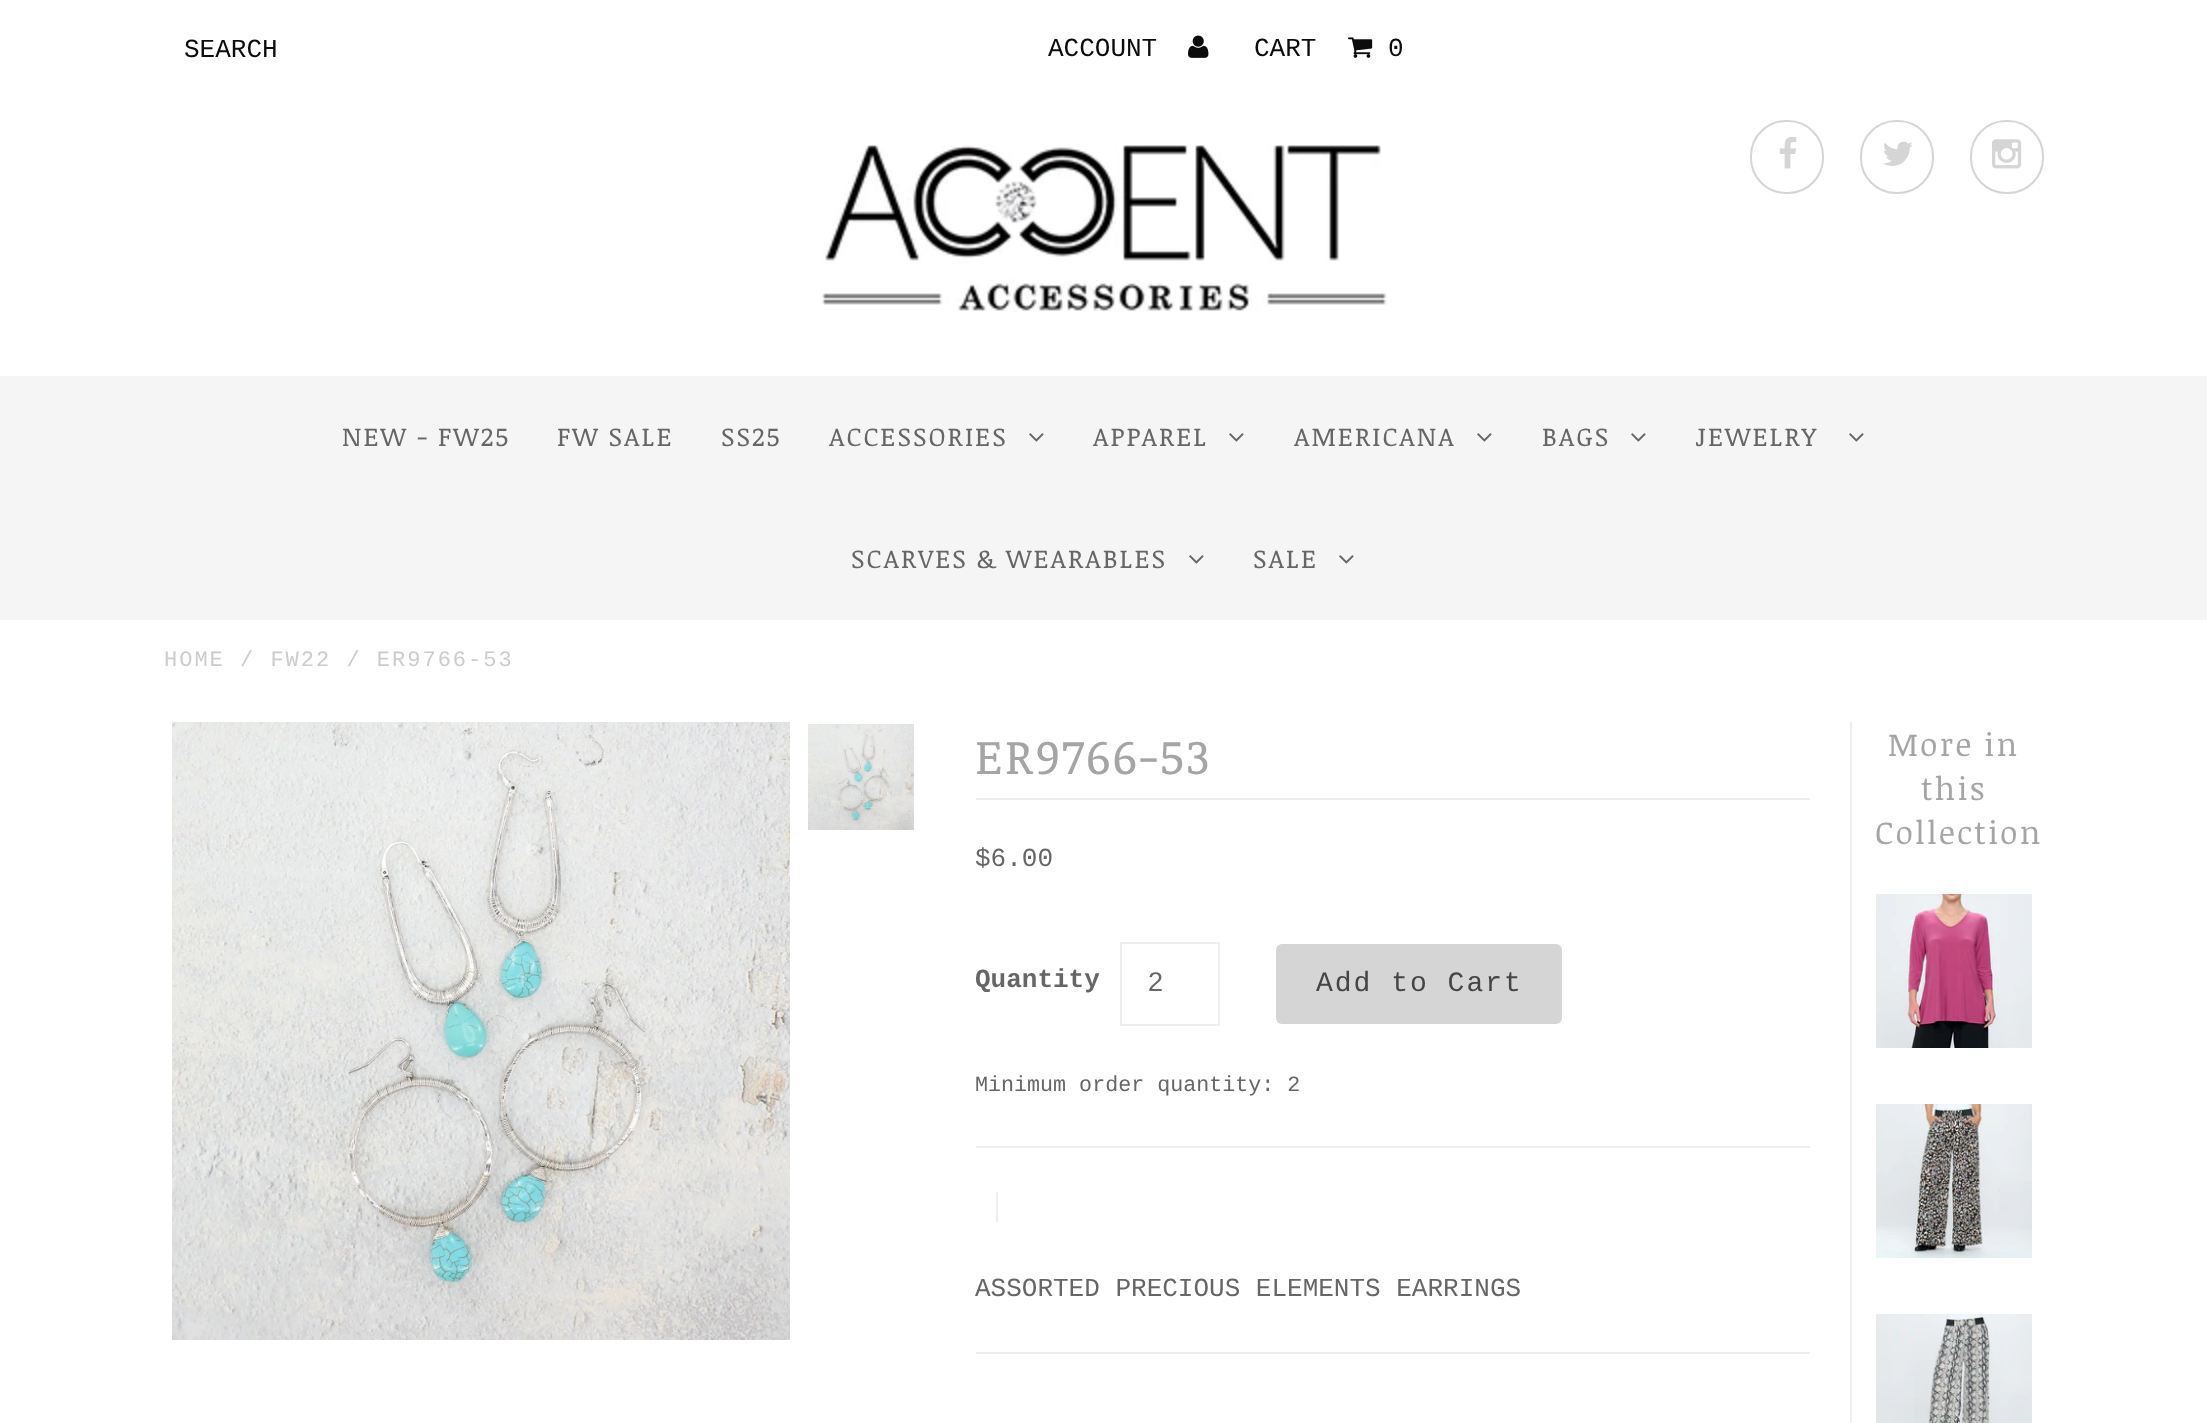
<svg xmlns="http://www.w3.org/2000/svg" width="2207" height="1423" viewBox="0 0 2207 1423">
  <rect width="100%" height="100%" fill="rgb(255,255,255)"/>
  <g font-family="Liberation Mono" font-size="26" fill="rgb(13,12,12)">
    <text x="184" y="57">SEARCH</text>
    <text x="1048" y="56">ACCOUNT</text>
  </g>
  <image x="1188" y="35" width="21" height="23" href="pic1.png"/>
  <text x="1254" y="56" font-family="Liberation Mono" font-size="26" fill="rgb(13,12,12)">CART</text>
  <image x="1348" y="37" width="25" height="21" href="pic2.png"/>
  <text x="1388" y="56" font-family="Liberation Mono" font-size="26" fill="rgb(13,12,12)">0</text>
  <image x="821" y="145" width="566" height="167" href="pic3.png"/>
  <rect x="1751" y="121" width="72" height="72" rx="35" fill="none" stroke="rgb(213,213,213)" stroke-width="2"/>
  <image x="1779" y="136" width="18" height="33" href="pic4.png"/>
  <rect x="1861" y="121" width="72" height="72" rx="35" fill="none" stroke="rgb(213,213,213)" stroke-width="2"/>
  <image x="1883" y="141" width="30" height="25" href="pic5.png"/>
  <rect x="1971" y="121" width="72" height="72" rx="35" fill="none" stroke="rgb(213,213,213)" stroke-width="2"/>
  <image x="1992" y="139" width="30" height="30" href="pic6.png"/>
  <rect x="0" y="376" width="2207" height="244" fill="rgb(245,245,245)"/>
  <g font-family="Noticia Text" font-size="26" letter-spacing="2" fill="rgb(102,102,102)">
    <text x="342" y="446">NEW - FW25</text>
    <text x="557" y="446">FW SALE</text>
    <text x="721" y="446">SS25</text>
    <text x="829" y="446">ACCESSORIES</text>
  </g>
  <image x="1029" y="433" width="15" height="9" href="pic7.png"/>
  <text x="1093" y="446" font-family="Noticia Text" font-size="26" letter-spacing="2" fill="rgb(102,102,102)">APPAREL</text>
  <image x="1229" y="433" width="15" height="9" href="pic7.png"/>
  <text x="1294" y="446" font-family="Noticia Text" font-size="26" letter-spacing="2" fill="rgb(102,102,102)">AMERICANA</text>
  <image x="1477" y="433" width="15" height="9" href="pic7.png"/>
  <text x="1542" y="446" font-family="Noticia Text" font-size="26" letter-spacing="2" fill="rgb(102,102,102)">BAGS</text>
  <image x="1631" y="433" width="15" height="9" href="pic7.png"/>
  <text x="1695" y="446" font-family="Noticia Text" font-size="26" letter-spacing="2" fill="rgb(102,102,102)">JEWELRY</text>
  <image x="1849" y="433" width="15" height="9" href="pic7.png"/>
  <text x="851" y="568" font-family="Noticia Text" font-size="26" letter-spacing="2" fill="rgb(102,102,102)">SCARVES &amp; WEARABLES</text>
  <image x="1189" y="555" width="15" height="9" href="pic7.png"/>
  <text x="1253" y="568" font-family="Noticia Text" font-size="26" letter-spacing="2" fill="rgb(102,102,102)">SALE</text>
  <image x="1339" y="555" width="15" height="9" href="pic7.png"/>
  <text x="164" y="666" font-family="Liberation Mono" font-size="22" letter-spacing="2" fill="rgb(204,204,204)">HOME / FW22 / ER9766-53</text>
  <image x="172" y="722" width="618" height="618" href="pic8.png"/>
  <image x="808" y="724" width="106" height="106" href="pic9.png"/>
  <rect x="1850" y="722" width="2" height="701" fill="rgb(238,238,238)"/>
  <rect x="976" y="798" width="834" height="2" fill="rgb(238,238,238)"/>
  <text x="975" y="774" font-family="Noticia Text" font-size="48" letter-spacing="2" fill="rgb(165,165,165)">ER9766-53</text>
  <text x="975" y="866" font-family="Liberation Mono" font-size="26" fill="rgb(102,102,102)">$6.00</text>
  <rect x="976" y="1146" width="834" height="2" fill="rgb(238,238,238)"/>
  <text x="975" y="987" font-family="Liberation Mono" font-size="26" font-weight="bold" fill="rgb(102,102,102)">Quantity</text>
  <rect x="1121" y="943" width="98" height="82" fill="none" stroke="rgb(238,238,238)" stroke-width="2"/>
  <text x="1148" y="991" font-family="Liberation Sans" font-size="27" fill="rgb(102,102,102)">2</text>
  <rect x="1276" y="944" width="286" height="80" rx="6" fill="rgb(213,213,213)"/>
  <text x="1316" y="991" font-family="Liberation Mono" font-size="28" letter-spacing="2" fill="rgb(69,69,69)">Add to Cart</text>
  <text x="975" y="1091" font-family="Liberation Mono" font-size="21.7" fill="rgb(102,102,102)">Minimum order quantity: 2</text>
  <rect x="996" y="1192" width="2" height="30" fill="rgb(238,238,238)"/>
  <text x="975" y="1296" font-family="Liberation Mono" font-size="26" fill="rgb(102,102,102)">ASSORTED PRECIOUS ELEMENTS EARRINGS</text>
  <rect x="976" y="1352" width="834" height="2" fill="rgb(238,238,238)"/>
  <g font-family="Noticia Text" font-size="32" letter-spacing="2" fill="rgb(165,165,165)">
    <text x="1888" y="756">More in</text>
    <text x="1921" y="800">this</text>
    <text x="1875" y="844">Collection</text>
  </g>
  <image x="1876" y="894" width="156" height="154" href="pic10.png"/>
  <image x="1876" y="1104" width="156" height="154" href="pic11.png"/>
  <image x="1876" y="1314" width="156" height="109" href="pic12.png"/>
</svg>
